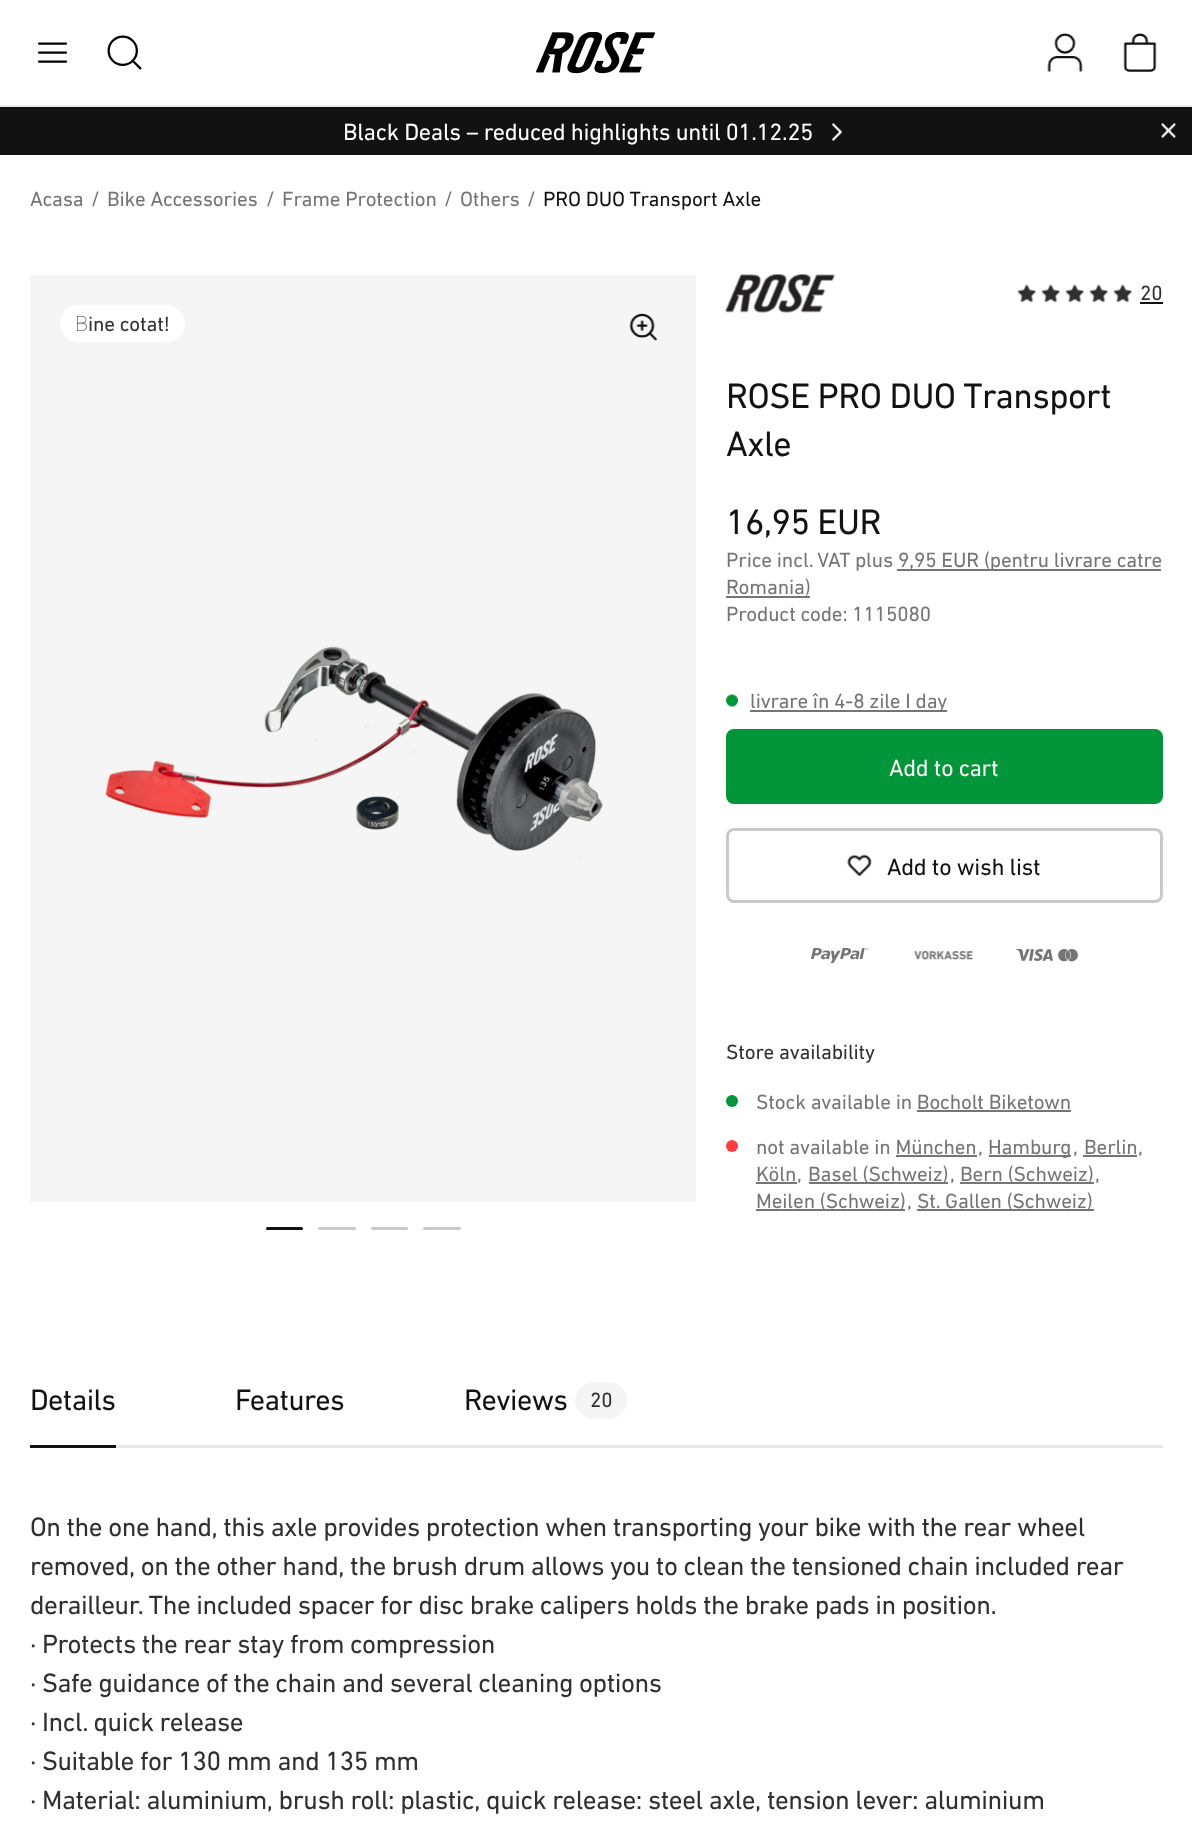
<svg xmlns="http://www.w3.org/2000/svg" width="1192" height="1829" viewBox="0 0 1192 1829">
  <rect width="100%" height="100%" fill="rgb(255,255,255)"/>
  <rect x="0" y="105" width="1192" height="2" fill="rgb(233,233,233)"/>
  <image x="37" y="42" width="31" height="21" href="pic1.png"/>
  <image x="107" y="35" width="35" height="35" href="pic2.png"/>
  <image x="536" y="32" width="119" height="42" href="pic3.png"/>
  <image x="1047" y="33" width="36" height="39" href="pic4.png"/>
  <image x="1123" y="33" width="34" height="39" href="pic5.png"/>
  <rect x="0" y="107" width="1192" height="48" fill="rgb(18,18,18)"/>
  <text x="343" y="140" font-family="'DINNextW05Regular'" font-size="24" letter-spacing="-0.3" fill="rgb(255,255,255)">Black Deals – reduced highlights until 01.12.25</text>
  <image x="832" y="122" width="10" height="20" href="pic6.png"/>
  <image x="1161" y="122" width="15" height="16" href="pic7.png"/>
  <g font-family="'DINNextW05Regular'" font-size="21" letter-spacing="-0.15" fill="rgb(117,117,117)">
    <text x="30" y="206">Acasa</text>
    <text x="91" y="206">/</text>
    <text x="107" y="206">Bike Accessories</text>
    <text x="266" y="206">/</text>
    <text x="282" y="206">Frame Protection</text>
    <text x="444" y="206">/</text>
    <text x="460" y="206">Others</text>
    <text x="527" y="206">/</text>
  </g>
  <text x="543" y="206" font-family="'DINNextW05Regular'" font-size="21" letter-spacing="-0.15" fill="rgb(18,18,18)">PRO DUO Transport Axle</text>
  <rect x="30" y="275" width="666" height="927" fill="rgb(245,245,245)"/>
  <image x="105" y="646" width="498" height="213" href="pic8.png"/>
  <image x="629" y="313" width="29" height="28" href="pic9.png"/>
  <rect x="266" y="1227" width="37" height="3" rx="1.5" fill="rgb(18,18,18)"/>
  <rect x="318" y="1227" width="38" height="3" rx="1.5" fill="rgb(201,201,201)"/>
  <rect x="371" y="1227" width="37" height="3" rx="1.5" fill="rgb(201,201,201)"/>
  <rect x="423" y="1227" width="38" height="3" rx="1.5" fill="rgb(201,201,201)"/>
  <rect x="60" y="305" width="125" height="37" rx="18.5" fill="rgb(255,255,255)"/>
  <text x="75" y="331" font-family="Noto Sans" font-size="21" font-weight="100" letter-spacing="-0.15" fill="rgb(48,48,48)">B</text>
  <text x="88" y="331" font-family="'DINNextW05Regular'" font-size="21" letter-spacing="-0.15" fill="rgb(48,48,48)">ine cotat!</text>
  <image x="725" y="274" width="110" height="39" href="pic10.png"/>
  <image x="1017" y="284" width="19" height="19" href="pic11.png"/>
  <image x="1041" y="284" width="19" height="19" href="pic11.png"/>
  <image x="1065" y="284" width="19" height="19" href="pic11.png"/>
  <image x="1089" y="284" width="19" height="19" href="pic11.png"/>
  <image x="1113" y="284" width="19" height="19" href="pic11.png"/>
  <text x="1140" y="300" font-family="'DINNextW05Regular'" font-size="21" letter-spacing="-0.15" fill="rgb(48,48,48)">20</text>
  <rect x="1140" y="302" width="23" height="2" fill="rgb(18,18,18)"/>
  <g font-family="'DINNextW05Regular'" font-size="36" letter-spacing="-0.6" fill="rgb(18,18,18)">
    <text>
      <tspan x="726" y="408">ROSE PRO DUO Transport</tspan>
      <tspan x="726" y="456">Axle</tspan>
    </text>
    <text x="726" y="534">16,95 EUR</text>
  </g>
  <text x="726" y="567" font-family="'DINNextW05Regular'" font-size="21" letter-spacing="-0.15" fill="rgb(117,117,117)">Price incl. VAT plus</text>
  <rect x="897" y="569" width="264" height="2" fill="rgb(117,117,117)"/>
  <g font-family="'DINNextW05Regular'" font-size="21" letter-spacing="-0.15" fill="rgb(117,117,117)">
    <text x="898" y="567">9,95 EUR (pentru livrare catre</text>
    <text x="726" y="594">Romania)</text>
  </g>
  <rect x="726" y="596" width="84" height="2" fill="rgb(117,117,117)"/>
  <text x="726" y="621" font-family="'DINNextW05Regular'" font-size="21" letter-spacing="-0.15" fill="rgb(117,117,117)">Product code: 1115080</text>
  <image x="726" y="694" width="12" height="13" href="pic12.png"/>
  <rect x="750" y="710" width="197" height="2" fill="rgb(117,117,117)"/>
  <text x="750" y="708" font-family="'DINNextW05Regular'" font-size="21" letter-spacing="-0.15" fill="rgb(117,117,117)">livrare în 4-8 zile I day</text>
  <rect x="727.5" y="730.5" width="434" height="72" rx="6.5" fill="rgb(2,149,57)" stroke="rgb(2,149,57)" stroke-width="3"/>
  <text x="889" y="776" font-family="'DINNextW05Regular'" font-size="24" letter-spacing="-0.3" fill="rgb(245,245,245)">Add to cart</text>
  <rect x="727.5" y="829.5" width="434" height="72" rx="6.5" fill="none" stroke="rgb(201,201,201)" stroke-width="3"/>
  <image x="847" y="854" width="25" height="23" href="pic13.png"/>
  <text x="887" y="875" font-family="'DINNextW05Regular'" font-size="24" letter-spacing="-0.3" fill="rgb(18,18,18)">Add to wish list</text>
  <image x="811" y="948" width="58" height="15" href="pic14.png"/>
  <image x="914" y="951" width="59" height="9" href="pic15.png"/>
  <image x="1016" y="949" width="62" height="13" href="pic16.png"/>
  <text x="726" y="1059" font-family="'DINNextW05Regular'" font-size="21" letter-spacing="-0.15" fill="rgb(48,48,48)">Store availability</text>
  <circle cx="732" cy="1101" r="6" fill="rgb(2,149,57)"/>
  <text x="756" y="1109" font-family="'DINNextW05Regular'" font-size="21" letter-spacing="-0.15" fill="rgb(117,117,117)">Stock available in Bocholt Biketown</text>
  <rect x="917" y="1110" width="154" height="2" fill="rgb(117,117,117)"/>
  <circle cx="732" cy="1146" r="6" fill="rgb(255,63,63)"/>
  <text x="756" y="1154" font-family="'DINNextW05Regular'" font-size="21" letter-spacing="-0.15" fill="rgb(117,117,117)">not available in München</text>
  <rect x="989" y="1155" width="82" height="2" fill="rgb(117,117,117)"/>
  <g font-family="'DINNextW05Regular'" font-size="21" letter-spacing="-0.15" fill="rgb(117,117,117)">
    <text x="988" y="1154">Hamburg</text>
    <text x="1073" y="1154">,</text>
    <text x="1084" y="1154">Berlin</text>
  </g>
  <rect x="1083" y="1155" width="54" height="2" fill="rgb(117,117,117)"/>
  <text x="1138" y="1154" font-family="'DINNextW05Regular'" font-size="21" letter-spacing="-0.15" fill="rgb(117,117,117)">,</text>
  <rect x="896" y="1155" width="81" height="2" fill="rgb(117,117,117)"/>
  <g font-family="'DINNextW05Regular'" font-size="21" letter-spacing="-0.15" fill="rgb(117,117,117)">
    <text x="978" y="1154">,</text>
    <text x="756" y="1181">Köln</text>
  </g>
  <rect x="756" y="1182" width="41" height="2" fill="rgb(117,117,117)"/>
  <text x="797" y="1181" font-family="'DINNextW05Regular'" font-size="21" letter-spacing="-0.15" fill="rgb(117,117,117)">,</text>
  <rect x="809" y="1182" width="139" height="2" fill="rgb(117,117,117)"/>
  <g font-family="'DINNextW05Regular'" font-size="21" letter-spacing="-0.15" fill="rgb(117,117,117)">
    <text x="808" y="1181">Basel (Schweiz)</text>
    <text x="950" y="1181">,</text>
  </g>
  <rect x="960" y="1182" width="134" height="2" fill="rgb(117,117,117)"/>
  <g font-family="'DINNextW05Regular'" font-size="21" letter-spacing="-0.15" fill="rgb(117,117,117)">
    <text x="960" y="1181">Bern (Schweiz)</text>
    <text x="1095" y="1181">,</text>
  </g>
  <rect x="756" y="1209" width="149" height="2" fill="rgb(117,117,117)"/>
  <g font-family="'DINNextW05Regular'" font-size="21" letter-spacing="-0.15" fill="rgb(117,117,117)">
    <text x="756" y="1208">Meilen (Schweiz)</text>
    <text x="907" y="1208">,</text>
  </g>
  <rect x="917" y="1209" width="177" height="2" fill="rgb(117,117,117)"/>
  <text x="917" y="1208" font-family="'DINNextW05Regular'" font-size="21" letter-spacing="-0.15" fill="rgb(117,117,117)">St. Gallen (Schweiz)</text>
  <text x="30" y="1410" font-family="'DINNextW05Regular'" font-size="30" letter-spacing="-0.6" fill="rgb(18,18,18)">Details</text>
  <rect x="30" y="1445" width="86" height="3" fill="rgb(18,18,18)"/>
  <g font-family="'DINNextW05Regular'" font-size="30" letter-spacing="-0.6" fill="rgb(18,18,18)">
    <text x="235" y="1410">Features</text>
    <text x="464" y="1410">Reviews</text>
  </g>
  <rect x="575" y="1382" width="52" height="37" rx="18.5" fill="rgb(245,245,245)"/>
  <text x="590" y="1407" font-family="'DINNextW05Regular'" font-size="21" letter-spacing="-0.15" fill="rgb(48,48,48)">20</text>
  <rect x="116" y="1445" width="1047" height="3" fill="rgb(233,233,233)"/>
  <g font-family="'DINNextW05Regular'" font-size="27" letter-spacing="-0.45" fill="rgb(48,48,48)">
    <text>
      <tspan x="30" y="1536">On the one hand, this axle provides protection when transporting your bike with the rear wheel</tspan>
      <tspan x="30" y="1575">removed, on the other hand, the brush drum allows you to clean the tensioned chain included rear</tspan>
      <tspan x="30" y="1614">derailleur. The included spacer for disc brake calipers holds the brake pads in position.</tspan>
      <tspan x="30" y="1653">· Protects the rear stay from compression</tspan>
      <tspan x="30" y="1692">· Safe guidance of the chain and several cleaning options</tspan>
      <tspan x="30" y="1731">· Incl. quick release</tspan>
      <tspan x="30" y="1770">· Suitable for 130 mm and 135 mm</tspan>
      <tspan x="30" y="1809">· Material: aluminium, brush roll: plastic, quick release: steel axle, tension lever: aluminium</tspan>
    </text>
  </g>
</svg>
